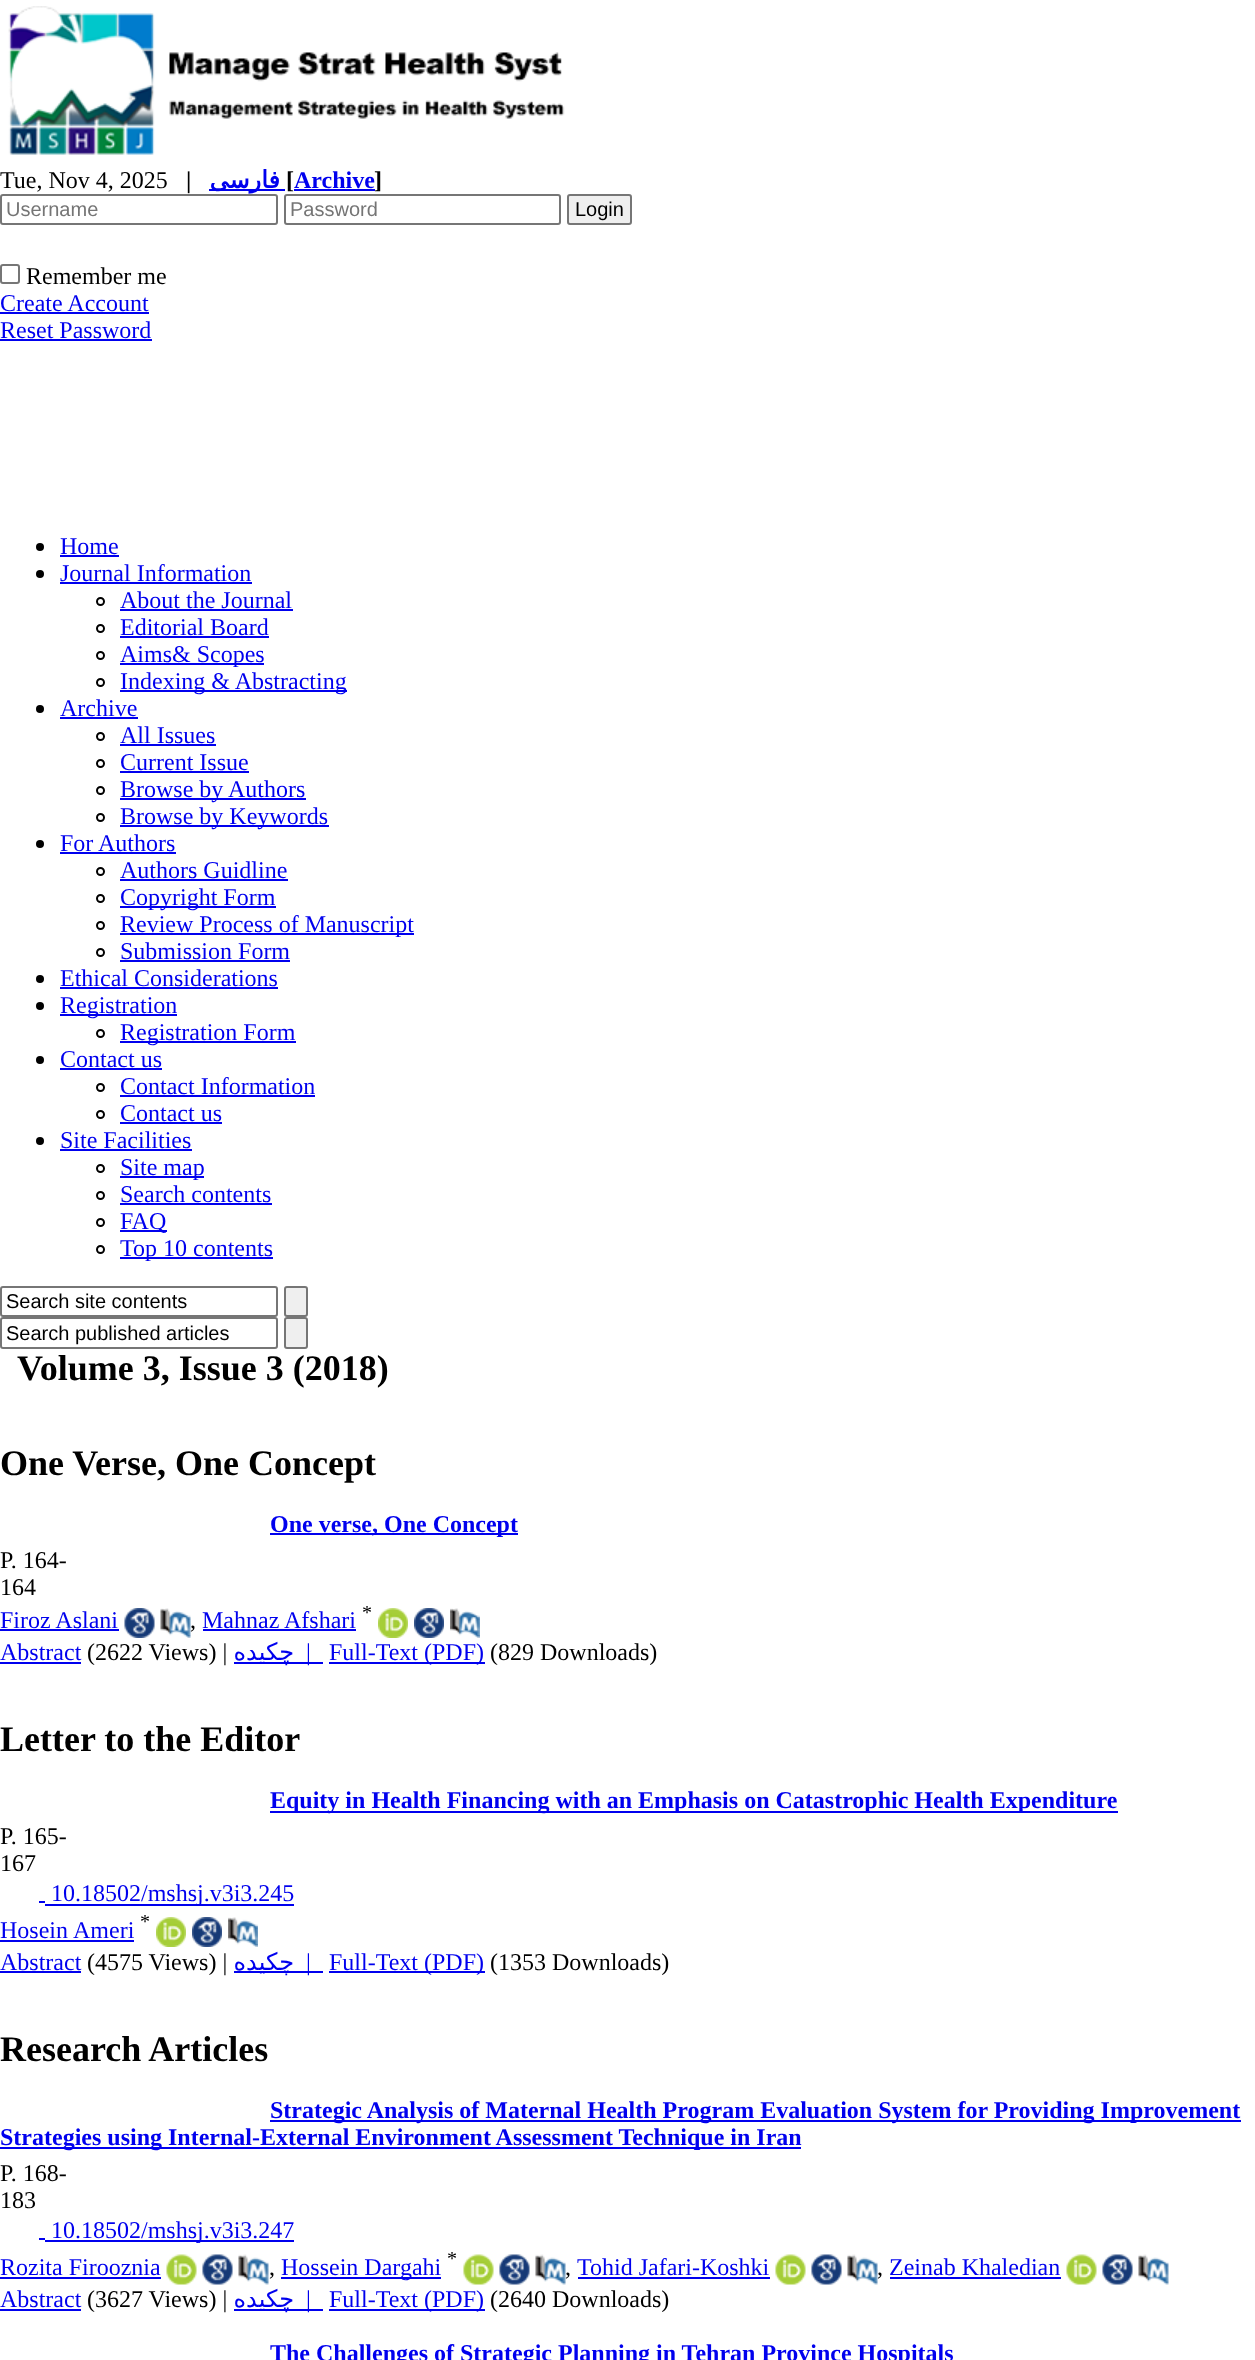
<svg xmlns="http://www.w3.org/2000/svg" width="1255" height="2360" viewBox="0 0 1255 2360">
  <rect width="100%" height="100%" fill="rgb(255,255,255)"/>
  <image x="8" y="6" width="557" height="149" href="pic1.png"/>
  <text x="0" y="188" font-family="Liberation Serif" font-size="24" fill="rgb(0,0,0)">Tue, Nov 4, 2025</text>
  <text x="186" y="188" font-family="Liberation Serif" font-size="24" font-weight="bold" fill="rgb(0,0,0)">|</text>
  <rect x="209" y="189" width="76" height="2" fill="rgb(0,0,238)"/>
  <text x="280" y="188" font-family="DejaVu Sans" font-size="24" font-weight="bold" direction="rtl" fill="rgb(0,0,238)">فارسی</text>
  <text x="286" y="188" font-family="Liberation Serif" font-size="24" font-weight="bold" fill="rgb(0,0,0)">[</text>
  <text x="294" y="188" font-family="Liberation Serif" font-size="24" font-weight="bold" fill="rgb(0,0,238)">Archive</text>
  <text x="374" y="188" font-family="Liberation Serif" font-size="24" font-weight="bold" fill="rgb(0,0,0)">]</text>
  <rect x="294" y="189" width="81" height="2" fill="rgb(0,0,238)"/>
  <rect x="1" y="195" width="276" height="29" rx="2" fill="none" stroke="rgb(118,118,118)" stroke-width="2"/>
  <text x="6" y="216" font-family="Liberation Sans" font-size="20" fill="rgb(117,117,117)">Username</text>
  <rect x="285" y="195" width="275" height="29" rx="2" fill="none" stroke="rgb(118,118,118)" stroke-width="2"/>
  <text x="290" y="216" font-family="Liberation Sans" font-size="20" fill="rgb(117,117,117)">Password</text>
  <rect x="568" y="195" width="63" height="29" rx="2" fill="rgb(239,239,239)" stroke="rgb(118,118,118)" stroke-width="2"/>
  <text x="575" y="216" font-family="Liberation Sans" font-size="20" fill="rgb(0,0,0)">Login</text>
  <rect x="1" y="265" width="18" height="18" rx="2" fill="none" stroke="rgb(118,118,118)" stroke-width="2"/>
  <text x="26" y="284" font-family="Liberation Serif" font-size="24" fill="rgb(0,0,0)">Remember me</text>
  <text x="0" y="311" font-family="Liberation Serif" font-size="24" fill="rgb(0,0,238)">Create Account</text>
  <rect x="0" y="312" width="149" height="2" fill="rgb(0,0,238)"/>
  <text x="0" y="338" font-family="Liberation Serif" font-size="24" fill="rgb(0,0,238)">Reset Password</text>
  <rect x="0" y="339" width="152" height="2" fill="rgb(0,0,238)"/>
  <circle cx="40" cy="547" r="4" fill="rgb(0,0,0)"/>
  <text x="60" y="554" font-family="Liberation Serif" font-size="24" fill="rgb(0,0,238)">Home</text>
  <rect x="60" y="555" width="59" height="2" fill="rgb(0,0,238)"/>
  <circle cx="40" cy="574" r="4" fill="rgb(0,0,0)"/>
  <text x="60" y="581" font-family="Liberation Serif" font-size="24" fill="rgb(0,0,238)">Journal Information</text>
  <rect x="60" y="582" width="192" height="2" fill="rgb(0,0,238)"/>
  <circle cx="100.5" cy="601.5" r="3.5" fill="none" stroke="rgb(0,0,0)" stroke-width="2"/>
  <text x="120" y="608" font-family="Liberation Serif" font-size="24" fill="rgb(0,0,238)">About the Journal</text>
  <rect x="120" y="609" width="173" height="2" fill="rgb(0,0,238)"/>
  <circle cx="100.5" cy="628.5" r="3.5" fill="none" stroke="rgb(0,0,0)" stroke-width="2"/>
  <text x="120" y="635" font-family="Liberation Serif" font-size="24" fill="rgb(0,0,238)">Editorial Board</text>
  <rect x="120" y="636" width="149" height="2" fill="rgb(0,0,238)"/>
  <circle cx="100.5" cy="655.5" r="3.5" fill="none" stroke="rgb(0,0,0)" stroke-width="2"/>
  <rect x="120" y="663" width="144" height="2" fill="rgb(0,0,238)"/>
  <text x="120" y="662" font-family="Liberation Serif" font-size="24" fill="rgb(0,0,238)">Aims&amp; Scopes</text>
  <circle cx="100.5" cy="682.5" r="3.5" fill="none" stroke="rgb(0,0,0)" stroke-width="2"/>
  <rect x="120" y="690" width="227" height="2" fill="rgb(0,0,238)"/>
  <text x="120" y="689" font-family="Liberation Serif" font-size="24" fill="rgb(0,0,238)">Indexing &amp; Abstracting</text>
  <circle cx="40" cy="709" r="4" fill="rgb(0,0,0)"/>
  <text x="60" y="716" font-family="Liberation Serif" font-size="24" fill="rgb(0,0,238)">Archive</text>
  <rect x="60" y="717" width="78" height="2" fill="rgb(0,0,238)"/>
  <circle cx="100.5" cy="736.5" r="3.5" fill="none" stroke="rgb(0,0,0)" stroke-width="2"/>
  <text x="120" y="743" font-family="Liberation Serif" font-size="24" fill="rgb(0,0,238)">All Issues</text>
  <rect x="120" y="744" width="96" height="2" fill="rgb(0,0,238)"/>
  <circle cx="100.5" cy="763.5" r="3.5" fill="none" stroke="rgb(0,0,0)" stroke-width="2"/>
  <text x="120" y="770" font-family="Liberation Serif" font-size="24" fill="rgb(0,0,238)">Current Issue</text>
  <rect x="120" y="771" width="129" height="2" fill="rgb(0,0,238)"/>
  <circle cx="100.5" cy="790.5" r="3.5" fill="none" stroke="rgb(0,0,0)" stroke-width="2"/>
  <rect x="120" y="798" width="186" height="2" fill="rgb(0,0,238)"/>
  <text x="120" y="797" font-family="Liberation Serif" font-size="24" fill="rgb(0,0,238)">Browse by Authors</text>
  <circle cx="100.5" cy="817.5" r="3.5" fill="none" stroke="rgb(0,0,0)" stroke-width="2"/>
  <rect x="120" y="825" width="209" height="2" fill="rgb(0,0,238)"/>
  <text x="120" y="824" font-family="Liberation Serif" font-size="24" fill="rgb(0,0,238)">Browse by Keywords</text>
  <circle cx="40" cy="844" r="4" fill="rgb(0,0,0)"/>
  <text x="60" y="851" font-family="Liberation Serif" font-size="24" fill="rgb(0,0,238)">For Authors</text>
  <rect x="60" y="852" width="116" height="2" fill="rgb(0,0,238)"/>
  <circle cx="100.5" cy="871.5" r="3.5" fill="none" stroke="rgb(0,0,0)" stroke-width="2"/>
  <text x="120" y="878" font-family="Liberation Serif" font-size="24" fill="rgb(0,0,238)">Authors Guidline</text>
  <rect x="120" y="879" width="168" height="2" fill="rgb(0,0,238)"/>
  <circle cx="100.5" cy="898.5" r="3.5" fill="none" stroke="rgb(0,0,0)" stroke-width="2"/>
  <rect x="120" y="906" width="156" height="2" fill="rgb(0,0,238)"/>
  <text x="120" y="905" font-family="Liberation Serif" font-size="24" fill="rgb(0,0,238)">Copyright Form</text>
  <circle cx="100.5" cy="925.5" r="3.5" fill="none" stroke="rgb(0,0,0)" stroke-width="2"/>
  <rect x="120" y="933" width="294" height="2" fill="rgb(0,0,238)"/>
  <text x="120" y="932" font-family="Liberation Serif" font-size="24" fill="rgb(0,0,238)">Review Process of Manuscript</text>
  <circle cx="100.5" cy="952.5" r="3.5" fill="none" stroke="rgb(0,0,0)" stroke-width="2"/>
  <text x="120" y="959" font-family="Liberation Serif" font-size="24" fill="rgb(0,0,238)">Submission Form</text>
  <rect x="120" y="960" width="170" height="2" fill="rgb(0,0,238)"/>
  <circle cx="40" cy="979" r="4" fill="rgb(0,0,0)"/>
  <text x="60" y="986" font-family="Liberation Serif" font-size="24" fill="rgb(0,0,238)">Ethical Considerations</text>
  <rect x="60" y="987" width="218" height="2" fill="rgb(0,0,238)"/>
  <circle cx="40" cy="1006" r="4" fill="rgb(0,0,0)"/>
  <rect x="60" y="1014" width="117" height="2" fill="rgb(0,0,238)"/>
  <text x="60" y="1013" font-family="Liberation Serif" font-size="24" fill="rgb(0,0,238)">Registration</text>
  <circle cx="100.5" cy="1033.5" r="3.5" fill="none" stroke="rgb(0,0,0)" stroke-width="2"/>
  <rect x="120" y="1041" width="176" height="2" fill="rgb(0,0,238)"/>
  <text x="120" y="1040" font-family="Liberation Serif" font-size="24" fill="rgb(0,0,238)">Registration Form</text>
  <circle cx="40" cy="1060" r="4" fill="rgb(0,0,0)"/>
  <text x="60" y="1067" font-family="Liberation Serif" font-size="24" fill="rgb(0,0,238)">Contact us</text>
  <rect x="60" y="1068" width="102" height="2" fill="rgb(0,0,238)"/>
  <circle cx="100.5" cy="1087.5" r="3.5" fill="none" stroke="rgb(0,0,0)" stroke-width="2"/>
  <text x="120" y="1094" font-family="Liberation Serif" font-size="24" fill="rgb(0,0,238)">Contact Information</text>
  <rect x="120" y="1095" width="195" height="2" fill="rgb(0,0,238)"/>
  <circle cx="100.5" cy="1114.5" r="3.5" fill="none" stroke="rgb(0,0,0)" stroke-width="2"/>
  <text x="120" y="1121" font-family="Liberation Serif" font-size="24" fill="rgb(0,0,238)">Contact us</text>
  <rect x="120" y="1122" width="102" height="2" fill="rgb(0,0,238)"/>
  <circle cx="40" cy="1141" r="4" fill="rgb(0,0,0)"/>
  <text x="60" y="1148" font-family="Liberation Serif" font-size="24" fill="rgb(0,0,238)">Site Facilities</text>
  <rect x="60" y="1149" width="132" height="2" fill="rgb(0,0,238)"/>
  <circle cx="100.5" cy="1168.5" r="3.5" fill="none" stroke="rgb(0,0,0)" stroke-width="2"/>
  <rect x="120" y="1176" width="84" height="2" fill="rgb(0,0,238)"/>
  <text x="120" y="1175" font-family="Liberation Serif" font-size="24" fill="rgb(0,0,238)">Site map</text>
  <circle cx="100.5" cy="1195.5" r="3.5" fill="none" stroke="rgb(0,0,0)" stroke-width="2"/>
  <text x="120" y="1202" font-family="Liberation Serif" font-size="24" fill="rgb(0,0,238)">Search contents</text>
  <rect x="120" y="1203" width="152" height="2" fill="rgb(0,0,238)"/>
  <circle cx="100.5" cy="1222.5" r="3.5" fill="none" stroke="rgb(0,0,0)" stroke-width="2"/>
  <rect x="120" y="1230" width="47" height="2" fill="rgb(0,0,238)"/>
  <text x="120" y="1229" font-family="Liberation Serif" font-size="24" fill="rgb(0,0,238)">FAQ</text>
  <circle cx="100.5" cy="1249.5" r="3.5" fill="none" stroke="rgb(0,0,0)" stroke-width="2"/>
  <rect x="120" y="1257" width="153" height="2" fill="rgb(0,0,238)"/>
  <text x="120" y="1256" font-family="Liberation Serif" font-size="24" fill="rgb(0,0,238)">Top 10 contents</text>
  <rect x="1" y="1287" width="276" height="29" rx="2" fill="none" stroke="rgb(118,118,118)" stroke-width="2"/>
  <text x="6" y="1308" font-family="Liberation Sans" font-size="20" fill="rgb(0,0,0)">Search site contents</text>
  <rect x="285" y="1287" width="22" height="29" rx="2" fill="rgb(239,239,239)" stroke="rgb(118,118,118)" stroke-width="2"/>
  <rect x="1" y="1318" width="276" height="30" rx="2" fill="none" stroke="rgb(118,118,118)" stroke-width="2"/>
  <text x="6" y="1340" font-family="Liberation Sans" font-size="20" fill="rgb(0,0,0)">Search published articles</text>
  <rect x="285" y="1318" width="22" height="30" rx="2" fill="rgb(239,239,239)" stroke="rgb(118,118,118)" stroke-width="2"/>
  <g font-family="Liberation Serif" font-size="36" font-weight="bold" fill="rgb(0,0,0)">
    <text x="17" y="1380">Volume 3, Issue 3 (2018)</text>
    <text x="0" y="1475">One Verse, One Concept</text>
  </g>
  <rect x="270" y="1533" width="248" height="2" fill="rgb(0,0,238)"/>
  <text x="270" y="1532" font-family="Liberation Serif" font-size="24" font-weight="bold" fill="rgb(0,0,238)">One verse, One Concept</text>
  <g font-family="Liberation Serif" font-size="24" fill="rgb(0,0,0)">
    <text>
      <tspan x="0" y="1568">P. 164-</tspan>
      <tspan x="0" y="1595">164</tspan>
    </text>
  </g>
  <text x="0" y="1628" font-family="Liberation Serif" font-size="24" fill="rgb(0,0,238)">Firoz Aslani</text>
  <rect x="0" y="1629" width="119" height="2" fill="rgb(0,0,238)"/>
  <image x="124" y="1608" width="31" height="30" href="pic2.png"/>
  <image x="160" y="1608" width="31" height="30" href="pic3.png"/>
  <text x="190" y="1628" font-family="Liberation Serif" font-size="24" fill="rgb(0,0,0)">,</text>
  <text x="202" y="1628" font-family="Liberation Serif" font-size="24" fill="rgb(0,0,238)">Mahnaz Afshari</text>
  <rect x="203" y="1629" width="153" height="2" fill="rgb(0,0,238)"/>
  <text x="362" y="1619" font-family="Liberation Serif" font-size="20" fill="rgb(0,0,0)">*</text>
  <image x="378" y="1608" width="30" height="30" href="pic4.png"/>
  <image x="414" y="1608" width="30" height="30" href="pic5.png"/>
  <image x="450" y="1608" width="30" height="30" href="pic6.png"/>
  <text x="0" y="1660" font-family="Liberation Serif" font-size="24" fill="rgb(0,0,238)">Abstract</text>
  <rect x="0" y="1662" width="81" height="2" fill="rgb(0,0,238)"/>
  <text x="87" y="1660" font-family="Liberation Serif" font-size="24" fill="rgb(0,0,0)">(2622 Views) |</text>
  <rect x="234" y="1662" width="89" height="2" fill="rgb(0,0,238)"/>
  <text x="294" y="1660" font-family="DejaVu Sans" font-size="24" direction="rtl" fill="rgb(0,0,238)">چکیده</text>
  <text x="306" y="1660" font-family="Liberation Serif" font-size="24" fill="rgb(0,0,238)">|</text>
  <rect x="329" y="1662" width="156" height="2" fill="rgb(0,0,238)"/>
  <text x="329" y="1660" font-family="Liberation Serif" font-size="24" fill="rgb(0,0,238)">Full-Text (PDF)</text>
  <text x="490" y="1660" font-family="Liberation Serif" font-size="24" fill="rgb(0,0,0)">(829 Downloads)</text>
  <text x="0" y="1751" font-family="Liberation Serif" font-size="36" font-weight="bold" fill="rgb(0,0,0)">Letter to the Editor</text>
  <rect x="270" y="1811" width="848" height="2" fill="rgb(0,0,238)"/>
  <text x="270" y="1808" font-family="Liberation Serif" font-size="24" font-weight="bold" fill="rgb(0,0,238)">Equity in Health Financing with an Emphasis on Catastrophic Health Expenditure</text>
  <g font-family="Liberation Serif" font-size="24" fill="rgb(0,0,0)">
    <text>
      <tspan x="0" y="1844">P. 165-</tspan>
      <tspan x="0" y="1871">167</tspan>
    </text>
  </g>
  <rect x="45" y="1904" width="249" height="2" fill="rgb(0,0,238)"/>
  <text x="51" y="1901" font-family="Liberation Serif" font-size="24" fill="rgb(0,0,238)">10.18502/mshsj.v3i3.245</text>
  <rect x="39" y="1901" width="6" height="2" fill="rgb(0,0,238)"/>
  <text x="0" y="1938" font-family="Liberation Serif" font-size="24" fill="rgb(0,0,238)">Hosein</text>
  <rect x="0" y="1940" width="134" height="2" fill="rgb(0,0,238)"/>
  <text x="73" y="1938" font-family="Liberation Serif" font-size="24" fill="rgb(0,0,238)">Ameri</text>
  <text x="140" y="1928" font-family="Liberation Serif" font-size="20" fill="rgb(0,0,0)">*</text>
  <image x="156" y="1917" width="30" height="30" href="pic7.png"/>
  <image x="192" y="1917" width="30" height="30" href="pic8.png"/>
  <image x="228" y="1917" width="30" height="30" href="pic9.png"/>
  <text x="0" y="1970" font-family="Liberation Serif" font-size="24" fill="rgb(0,0,238)">Abstract</text>
  <rect x="0" y="1971" width="81" height="2" fill="rgb(0,0,238)"/>
  <text x="87" y="1970" font-family="Liberation Serif" font-size="24" fill="rgb(0,0,0)">(4575 Views) |</text>
  <rect x="234" y="1971" width="89" height="2" fill="rgb(0,0,238)"/>
  <text x="294" y="1970" font-family="DejaVu Sans" font-size="24" direction="rtl" fill="rgb(0,0,238)">چکیده</text>
  <text x="306" y="1970" font-family="Liberation Serif" font-size="24" fill="rgb(0,0,238)">|</text>
  <rect x="329" y="1971" width="156" height="2" fill="rgb(0,0,238)"/>
  <text x="329" y="1970" font-family="Liberation Serif" font-size="24" fill="rgb(0,0,238)">Full-Text (PDF)</text>
  <text x="490" y="1970" font-family="Liberation Serif" font-size="24" fill="rgb(0,0,0)">(1353 Downloads)</text>
  <text x="0" y="2061" font-family="Liberation Serif" font-size="36" font-weight="bold" fill="rgb(0,0,0)">Research Articles</text>
  <rect x="270" y="2120" width="971" height="2" fill="rgb(0,0,238)"/>
  <text x="270" y="2118" font-family="Liberation Serif" font-size="24" font-weight="bold" fill="rgb(0,0,238)">Strategic Analysis of Maternal Health Program Evaluation System for Providing Improvement</text>
  <rect x="0" y="2147" width="801" height="2" fill="rgb(0,0,238)"/>
  <text x="0" y="2145" font-family="Liberation Serif" font-size="24" font-weight="bold" fill="rgb(0,0,238)">Strategies using Internal-External Environment Assessment Technique in Iran</text>
  <g font-family="Liberation Serif" font-size="24" fill="rgb(0,0,0)">
    <text>
      <tspan x="0" y="2181">P. 168-</tspan>
      <tspan x="0" y="2208">183</tspan>
    </text>
  </g>
  <rect x="45" y="2240" width="249" height="2" fill="rgb(0,0,238)"/>
  <text x="51" y="2238" font-family="Liberation Serif" font-size="24" fill="rgb(0,0,238)">10.18502/mshsj.v3i3.247</text>
  <rect x="39" y="2238" width="6" height="2" fill="rgb(0,0,238)"/>
  <text x="0" y="2275" font-family="Liberation Serif" font-size="24" fill="rgb(0,0,238)">Rozita Firooznia</text>
  <rect x="0" y="2277" width="161" height="2" fill="rgb(0,0,238)"/>
  <image x="166" y="2254" width="31" height="31" href="pic10.png"/>
  <image x="202" y="2254" width="31" height="31" href="pic11.png"/>
  <image x="238" y="2254" width="31" height="31" href="pic12.png"/>
  <text x="269" y="2275" font-family="Liberation Serif" font-size="24" fill="rgb(0,0,0)">,</text>
  <rect x="281" y="2277" width="160" height="2" fill="rgb(0,0,238)"/>
  <text x="281" y="2275" font-family="Liberation Serif" font-size="24" fill="rgb(0,0,238)">Hossein Dargahi</text>
  <text x="447" y="2265" font-family="Liberation Serif" font-size="20" fill="rgb(0,0,0)">*</text>
  <image x="463" y="2254" width="31" height="31" href="pic10.png"/>
  <image x="499" y="2254" width="31" height="31" href="pic11.png"/>
  <image x="535" y="2254" width="31" height="31" href="pic13.png"/>
  <text x="565" y="2275" font-family="Liberation Serif" font-size="24" fill="rgb(0,0,0)">,</text>
  <text x="577" y="2275" font-family="Liberation Serif" font-size="24" fill="rgb(0,0,238)">Tohid Jafari-Koshki</text>
  <rect x="578" y="2277" width="192" height="2" fill="rgb(0,0,238)"/>
  <image x="775" y="2254" width="31" height="31" href="pic10.png"/>
  <image x="811" y="2254" width="31" height="31" href="pic11.png"/>
  <image x="847" y="2254" width="31" height="31" href="pic12.png"/>
  <text x="877" y="2275" font-family="Liberation Serif" font-size="24" fill="rgb(0,0,0)">,</text>
  <text x="889" y="2275" font-family="Liberation Serif" font-size="24" fill="rgb(0,0,238)">Zeinab Khaledian</text>
  <rect x="890" y="2277" width="171" height="2" fill="rgb(0,0,238)"/>
  <image x="1066" y="2254" width="31" height="31" href="pic10.png"/>
  <image x="1102" y="2254" width="31" height="31" href="pic11.png"/>
  <image x="1138" y="2254" width="31" height="31" href="pic13.png"/>
  <text x="0" y="2307" font-family="Liberation Serif" font-size="24" fill="rgb(0,0,238)">Abstract</text>
  <rect x="0" y="2309" width="81" height="2" fill="rgb(0,0,238)"/>
  <text x="87" y="2307" font-family="Liberation Serif" font-size="24" fill="rgb(0,0,0)">(3627 Views) |</text>
  <rect x="234" y="2309" width="89" height="2" fill="rgb(0,0,238)"/>
  <text x="294" y="2307" font-family="DejaVu Sans" font-size="24" direction="rtl" fill="rgb(0,0,238)">چکیده</text>
  <text x="306" y="2307" font-family="Liberation Serif" font-size="24" fill="rgb(0,0,238)">|</text>
  <rect x="329" y="2309" width="156" height="2" fill="rgb(0,0,238)"/>
  <text x="329" y="2307" font-family="Liberation Serif" font-size="24" fill="rgb(0,0,238)">Full-Text (PDF)</text>
  <text x="490" y="2307" font-family="Liberation Serif" font-size="24" fill="rgb(0,0,0)">(2640 Downloads)</text>
  <text x="270" y="2361" font-family="Liberation Serif" font-size="24" font-weight="bold" fill="rgb(0,0,238)">The Challenges of Strategic Planning in Tehran Province Hospitals</text>
</svg>
